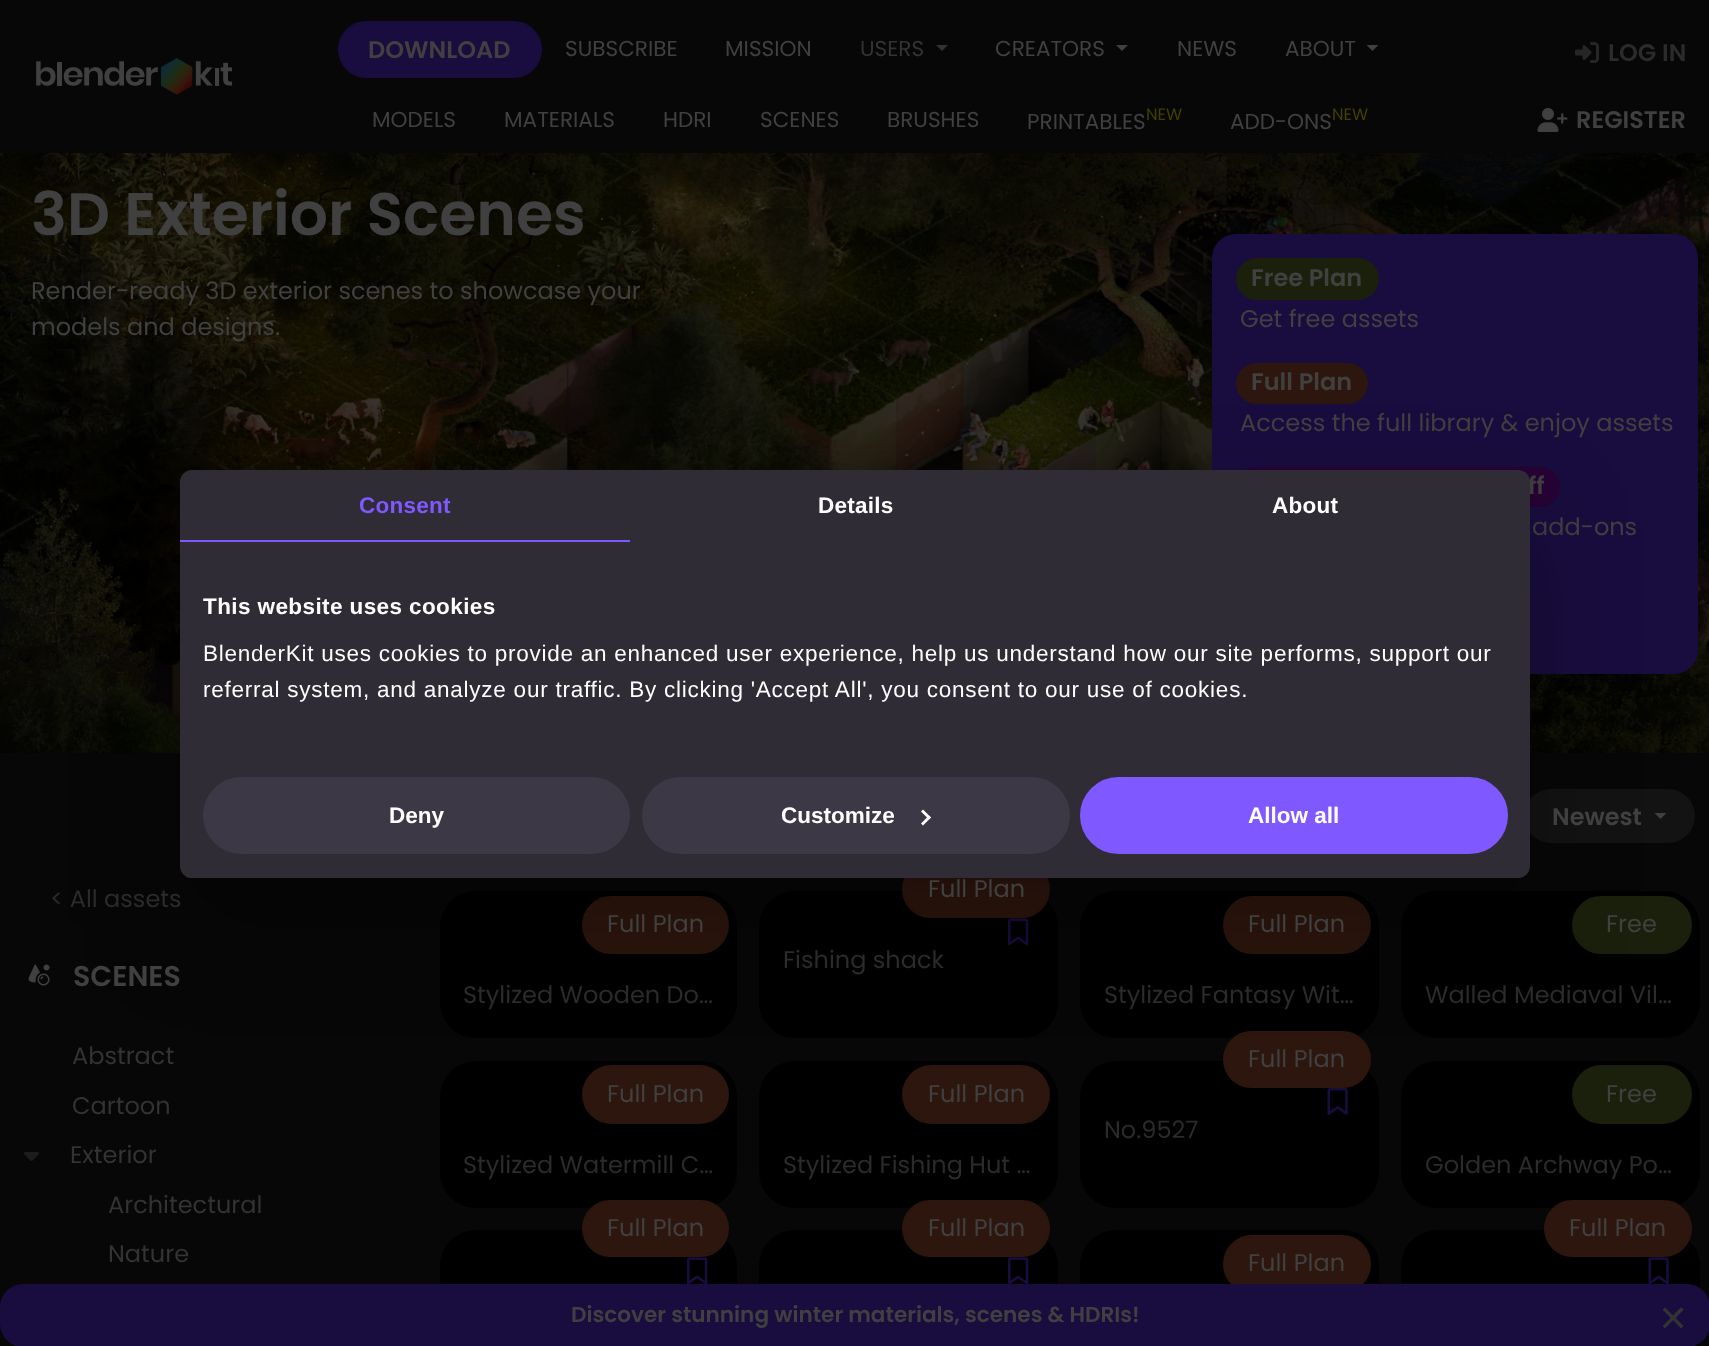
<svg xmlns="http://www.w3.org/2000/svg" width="1709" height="1346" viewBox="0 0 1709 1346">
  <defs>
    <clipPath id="clip1"><rect x="180" y="470" width="1350" height="408" rx="12"/></clipPath>
  </defs>
  <rect width="100%" height="100%" fill="rgb(7,7,7)"/>
  <image x="36" y="58" width="197" height="37" href="pic1.png"/>
  <rect x="339" y="22" width="202" height="55" rx="27.5" fill="rgb(25,13,63)" stroke="rgb(25,13,63)" stroke-width="2"/>
  <text x="368" y="58" font-family="Poppins" font-size="24" font-weight="600" fill="rgb(64,64,64)">DOWNLOAD</text>
  <g font-family="Poppins" font-size="21.6" fill="rgb(64,64,64)">
    <text x="565" y="56">SUBSCRIBE</text>
    <text x="725" y="56">MISSION</text>
  </g>
  <text x="860" y="56" font-family="Poppins" font-size="21.6" fill="rgb(51,51,51)">USERS</text>
  <path d="M936 45H948L942 51Z" fill="rgb(50,50,50)"/>
  <text x="995" y="56" font-family="Poppins" font-size="21.6" fill="rgb(64,64,64)">CREATORS</text>
  <path d="M1116 45H1128L1122 51Z" fill="rgb(64,64,64)"/>
  <g font-family="Poppins" font-size="21.6" fill="rgb(64,64,64)">
    <text x="1177" y="56">NEWS</text>
    <text x="1285" y="56">ABOUT</text>
  </g>
  <path d="M1366.5 45H1378.5L1372.5 51Z" fill="rgb(64,64,64)"/>
  <g font-family="Poppins" font-size="21.6" fill="rgb(64,64,64)">
    <text x="372" y="127">MODELS</text>
    <text x="504" y="127">MATERIALS</text>
    <text x="663" y="127">HDRI</text>
    <text x="760" y="127">SCENES</text>
    <text x="887" y="127">BRUSHES</text>
    <text x="1027" y="129">PRINTABLES</text>
  </g>
  <text x="1146" y="120" font-family="Poppins" font-size="16.5" fill="rgb(64,64,0)">NEW</text>
  <text x="1230" y="129" font-family="Poppins" font-size="21.6" fill="rgb(64,64,64)">ADD-ONS</text>
  <text x="1332" y="120" font-family="Poppins" font-size="16.5" fill="rgb(64,64,0)">NEW</text>
  <image x="1575" y="42" width="24" height="21" href="pic2.png"/>
  <text x="1608" y="61" font-family="Poppins" font-size="24" font-weight="600" fill="rgb(43,43,43)">LOG IN</text>
  <image x="1537" y="108" width="31" height="24" href="pic3.png"/>
  <text x="1576" y="128" font-family="Poppins" font-size="24" font-weight="600" fill="rgb(64,64,64)">REGISTER</text>
  <image x="0" y="153" width="1709" height="600" href="pic4.png"/>
  <text x="31" y="235" font-family="Poppins" font-size="60" font-weight="600" fill="rgb(64,64,64)">3D Exterior Scenes</text>
  <g font-family="Poppins" font-size="24" fill="rgb(64,64,64)">
    <text>
      <tspan x="31" y="299">Render-ready 3D exterior scenes to showcase your</tspan>
      <tspan x="31" y="335">models and designs.</tspan>
    </text>
  </g>
  <rect x="1212" y="234" width="486" height="440" rx="24" fill="rgb(25,13,63)"/>
  <rect x="1236" y="258" width="143" height="42" rx="21" fill="rgb(27,32,12)"/>
  <text x="1251" y="286" font-family="Poppins" font-size="24" font-weight="600" fill="rgb(64,64,64)">Free Plan</text>
  <text x="1240" y="327" font-family="Poppins" font-size="24" fill="rgb(64,64,64)">Get free assets</text>
  <rect x="1236" y="363" width="132" height="41" rx="20.5" fill="rgb(45,22,13)"/>
  <text x="1251" y="390" font-family="Poppins" font-size="24" font-weight="600" fill="rgb(64,64,64)">Full Plan</text>
  <text x="1240" y="431" font-family="Poppins" font-size="24" fill="rgb(64,64,64)">Access the full library &amp; enjoy assets</text>
  <rect x="1236" y="467" width="324" height="40" rx="20" fill="rgb(38,3,53)"/>
  <text x="1528" y="494" font-family="Poppins" font-size="24" font-weight="600" fill="rgb(64,64,64)">ff</text>
  <text x="1532" y="535" font-family="Poppins" font-size="24" fill="rgb(64,64,64)">add-ons</text>
  <rect x="759" y="891" width="299" height="147" rx="36" fill="rgb(0,0,0)"/>
  <rect x="903" y="862" width="146" height="55" rx="27.5" fill="rgb(45,22,13)" stroke="rgb(45,22,13)" stroke-width="2"/>
  <rect x="909" y="861" width="133" height="9" fill="rgb(7,7,7)"/>
  <rect x="1524" y="789" width="171" height="54" rx="27" fill="rgb(19,19,19)"/>
  <path d="M1654.5 813H1666.5L1660.5 819Z" fill="rgb(64,64,64)"/>
  <image x="28" y="964" width="22" height="22" href="pic5.png"/>
  <rect x="440" y="891" width="297" height="147" rx="36" fill="rgb(0,0,0)"/>
  <rect x="583" y="897" width="145" height="56" rx="28" fill="rgb(45,22,13)" stroke="rgb(45,22,13)" stroke-width="2"/>
  <image x="1008" y="918" width="21" height="28" href="pic7.png"/>
  <rect x="1080" y="891" width="299" height="147" rx="36" fill="rgb(0,0,0)"/>
  <rect x="1224" y="897" width="146" height="56" rx="28" fill="rgb(45,22,13)" stroke="rgb(45,22,13)" stroke-width="2"/>
  <rect x="1401" y="891" width="299" height="147" rx="36" fill="rgb(0,0,0)"/>
  <rect x="1573" y="897" width="118" height="56" rx="28" fill="rgb(27,32,12)" stroke="rgb(27,32,12)" stroke-width="2"/>
  <rect x="440" y="1061" width="297" height="147" rx="36" fill="rgb(0,0,0)"/>
  <rect x="583" y="1066" width="145" height="57" rx="28.5" fill="rgb(45,22,13)" stroke="rgb(45,22,13)" stroke-width="2"/>
  <rect x="759" y="1061" width="299" height="147" rx="36" fill="rgb(0,0,0)"/>
  <rect x="903" y="1066" width="146" height="57" rx="28.5" fill="rgb(45,22,13)" stroke="rgb(45,22,13)" stroke-width="2"/>
  <rect x="1080" y="1061" width="299" height="147" rx="36" fill="rgb(0,0,0)"/>
  <image x="1327" y="1087" width="21" height="28" href="pic8.png"/>
  <rect x="1224" y="1032" width="146" height="55" rx="27.5" fill="rgb(45,22,13)" stroke="rgb(45,22,13)" stroke-width="2"/>
  <rect x="1401" y="1061" width="299" height="147" rx="36" fill="rgb(0,0,0)"/>
  <rect x="1573" y="1066" width="118" height="57" rx="28.5" fill="rgb(27,32,12)" stroke="rgb(27,32,12)" stroke-width="2"/>
  <rect x="180" y="518" width="1350" height="408" rx="12" fill="rgba(0,0,0,0.3)" filter="blur(51px)"/>
  <rect x="180" y="470" width="1350" height="408" rx="12" fill="rgb(47,44,53)"/>
  <rect x="180" y="540" width="450" height="2" fill="rgb(127,88,255)"/>
  <text x="359" y="513" font-family="Liberation Sans" font-size="22.5" font-weight="bold" letter-spacing="0.25" fill="rgb(127,88,255)">Consent</text>
  <g font-family="Liberation Sans" font-size="22.5" font-weight="bold" letter-spacing="0.25" fill="rgb(255,255,255)">
    <text x="818" y="513">Details</text>
    <text x="1272" y="513">About</text>
  </g>
  <text x="203" y="614" font-family="Liberation Sans" font-size="22.5" font-weight="bold" letter-spacing="0.4" fill="rgb(255,255,255)">This website uses cookies</text>
  <g font-family="Liberation Sans" font-size="22.5" letter-spacing="0.75" fill="rgb(255,255,255)">
    <text>
      <tspan x="203" y="661">BlenderKit uses cookies to provide an enhanced user experience, help us understand how our site performs, support our</tspan>
      <tspan x="203" y="697">referral system, and analyze our traffic. By clicking 'Accept All', you consent to our use of cookies.</tspan>
    </text>
  </g>
  <g clip-path="url(#clip1)">
    <rect x="180" y="876" width="1350" height="2" fill="rgb(47,44,53)"/>
  </g>
  <rect x="204.5" y="778.5" width="424" height="74" rx="37" fill="rgb(61,56,70)" stroke="rgb(61,56,70)" stroke-width="3"/>
  <text x="389" y="823" font-family="Liberation Sans" font-size="22.5" font-weight="bold" fill="rgb(255,255,255)">Deny</text>
  <rect x="643.5" y="778.5" width="425" height="74" rx="37" fill="rgb(61,56,70)" stroke="rgb(61,56,70)" stroke-width="3"/>
  <text x="781" y="823" font-family="Liberation Sans" font-size="22.5" font-weight="bold" fill="rgb(255,255,255)">Customize</text>
  <path d="M923 809.5L931 817.5L929 819.5L921 811.5Z" fill="rgb(255,255,255)"/>
  <path d="M929 815.5L931 817.5L923 825.5L921 823.5Z" fill="rgb(255,255,255)"/>
  <rect x="1081.5" y="778.5" width="425" height="74" rx="37" fill="rgb(127,88,255)" stroke="rgb(127,88,255)" stroke-width="3"/>
  <text x="1248" y="823" font-family="Liberation Sans" font-size="22.5" font-weight="bold" fill="rgb(255,255,255)">Allow all</text>
  <text x="1552" y="825" font-family="Poppins" font-size="24" font-weight="600" fill="rgb(64,64,64)">Newest</text>
  <text x="50" y="907" font-family="Poppins" font-size="24" fill="rgb(43,43,43)">&lt; All assets</text>
  <text x="73" y="986" font-family="Poppins" font-size="28.5" font-weight="600" fill="rgb(64,64,64)">SCENES</text>
  <g font-family="Poppins" font-size="24" fill="rgb(51,51,51)">
    <text x="72" y="1064">Abstract</text>
    <text x="72" y="1114">Cartoon</text>
  </g>
  <image x="24" y="1152" width="15" height="9" href="pic6.png"/>
  <g font-family="Poppins" font-size="24" fill="rgb(51,51,51)">
    <text x="70" y="1163">Exterior</text>
    <text x="108" y="1213">Architectural</text>
    <text x="108" y="1262">Nature</text>
  </g>
  <text x="607" y="932" font-family="Poppins" font-size="24" fill="rgb(64,64,64)">Full Plan</text>
  <text x="463" y="1003" font-family="Poppins" font-size="24" fill="rgb(43,43,43)">Stylized Wooden Do…</text>
  <text x="928" y="897" font-family="Poppins" font-size="24" fill="rgb(64,64,64)">Full Plan</text>
  <text x="783" y="968" font-family="Poppins" font-size="24" fill="rgb(43,43,43)">Fishing shack</text>
  <text x="1248" y="932" font-family="Poppins" font-size="24" fill="rgb(64,64,64)">Full Plan</text>
  <text x="1104" y="1003" font-family="Poppins" font-size="24" fill="rgb(43,43,43)">Stylized Fantasy Wit…</text>
  <text x="1606" y="932" font-family="Poppins" font-size="24" fill="rgb(64,64,64)">Free</text>
  <text x="1425" y="1003" font-family="Poppins" font-size="24" fill="rgb(43,43,43)">Walled Mediaval Vil…</text>
  <text x="607" y="1102" font-family="Poppins" font-size="24" fill="rgb(64,64,64)">Full Plan</text>
  <text x="463" y="1173" font-family="Poppins" font-size="24" fill="rgb(43,43,43)">Stylized Watermill C…</text>
  <text x="928" y="1102" font-family="Poppins" font-size="24" fill="rgb(64,64,64)">Full Plan</text>
  <text x="783" y="1173" font-family="Poppins" font-size="24" fill="rgb(43,43,43)">Stylized Fishing Hut …</text>
  <text x="1248" y="1067" font-family="Poppins" font-size="24" fill="rgb(64,64,64)">Full Plan</text>
  <text x="1104" y="1138" font-family="Poppins" font-size="24" fill="rgb(43,43,43)">No.9527</text>
  <text x="1606" y="1102" font-family="Poppins" font-size="24" fill="rgb(64,64,64)">Free</text>
  <text x="1425" y="1173" font-family="Poppins" font-size="24" fill="rgb(43,43,43)">Golden Archway Po…</text>
  <rect x="440" y="1230" width="297" height="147" rx="36" fill="rgb(0,0,0)"/>
  <rect x="583" y="1201" width="145" height="55" rx="27.5" fill="rgb(45,22,13)" stroke="rgb(45,22,13)" stroke-width="2"/>
  <text x="607" y="1236" font-family="Poppins" font-size="24" fill="rgb(64,64,64)">Full Plan</text>
  <image x="687" y="1257" width="21" height="27" href="pic9.png"/>
  <rect x="759" y="1230" width="299" height="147" rx="36" fill="rgb(0,0,0)"/>
  <rect x="903" y="1201" width="146" height="55" rx="27.5" fill="rgb(45,22,13)" stroke="rgb(45,22,13)" stroke-width="2"/>
  <text x="928" y="1236" font-family="Poppins" font-size="24" fill="rgb(64,64,64)">Full Plan</text>
  <image x="1008" y="1257" width="21" height="27" href="pic9.png"/>
  <rect x="1401" y="1230" width="299" height="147" rx="36" fill="rgb(0,0,0)"/>
  <rect x="1545" y="1201" width="146" height="55" rx="27.5" fill="rgb(45,22,13)" stroke="rgb(45,22,13)" stroke-width="2"/>
  <text x="1569" y="1236" font-family="Poppins" font-size="24" fill="rgb(64,64,64)">Full Plan</text>
  <image x="1648" y="1257" width="21" height="27" href="pic10.png"/>
  <rect x="1080" y="1230" width="299" height="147" rx="36" fill="rgb(0,0,0)"/>
  <rect x="1224" y="1236" width="146" height="56" rx="28" fill="rgb(45,22,13)" stroke="rgb(45,22,13)" stroke-width="2"/>
  <text x="1248" y="1271" font-family="Poppins" font-size="24" fill="rgb(64,64,64)">Full Plan</text>
  <rect x="0" y="1284" width="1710" height="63" rx="23" fill="rgb(25,13,63)"/>
  <text x="571" y="1322" font-family="Poppins" font-size="21.6" font-weight="600" fill="rgb(64,64,64)">Discover stunning winter materials, scenes &amp; HDRIs!</text>
  <text x="1658" y="1331" font-family="DejaVu Sans" font-size="36" fill="rgb(51,51,51)">✕</text>
</svg>
